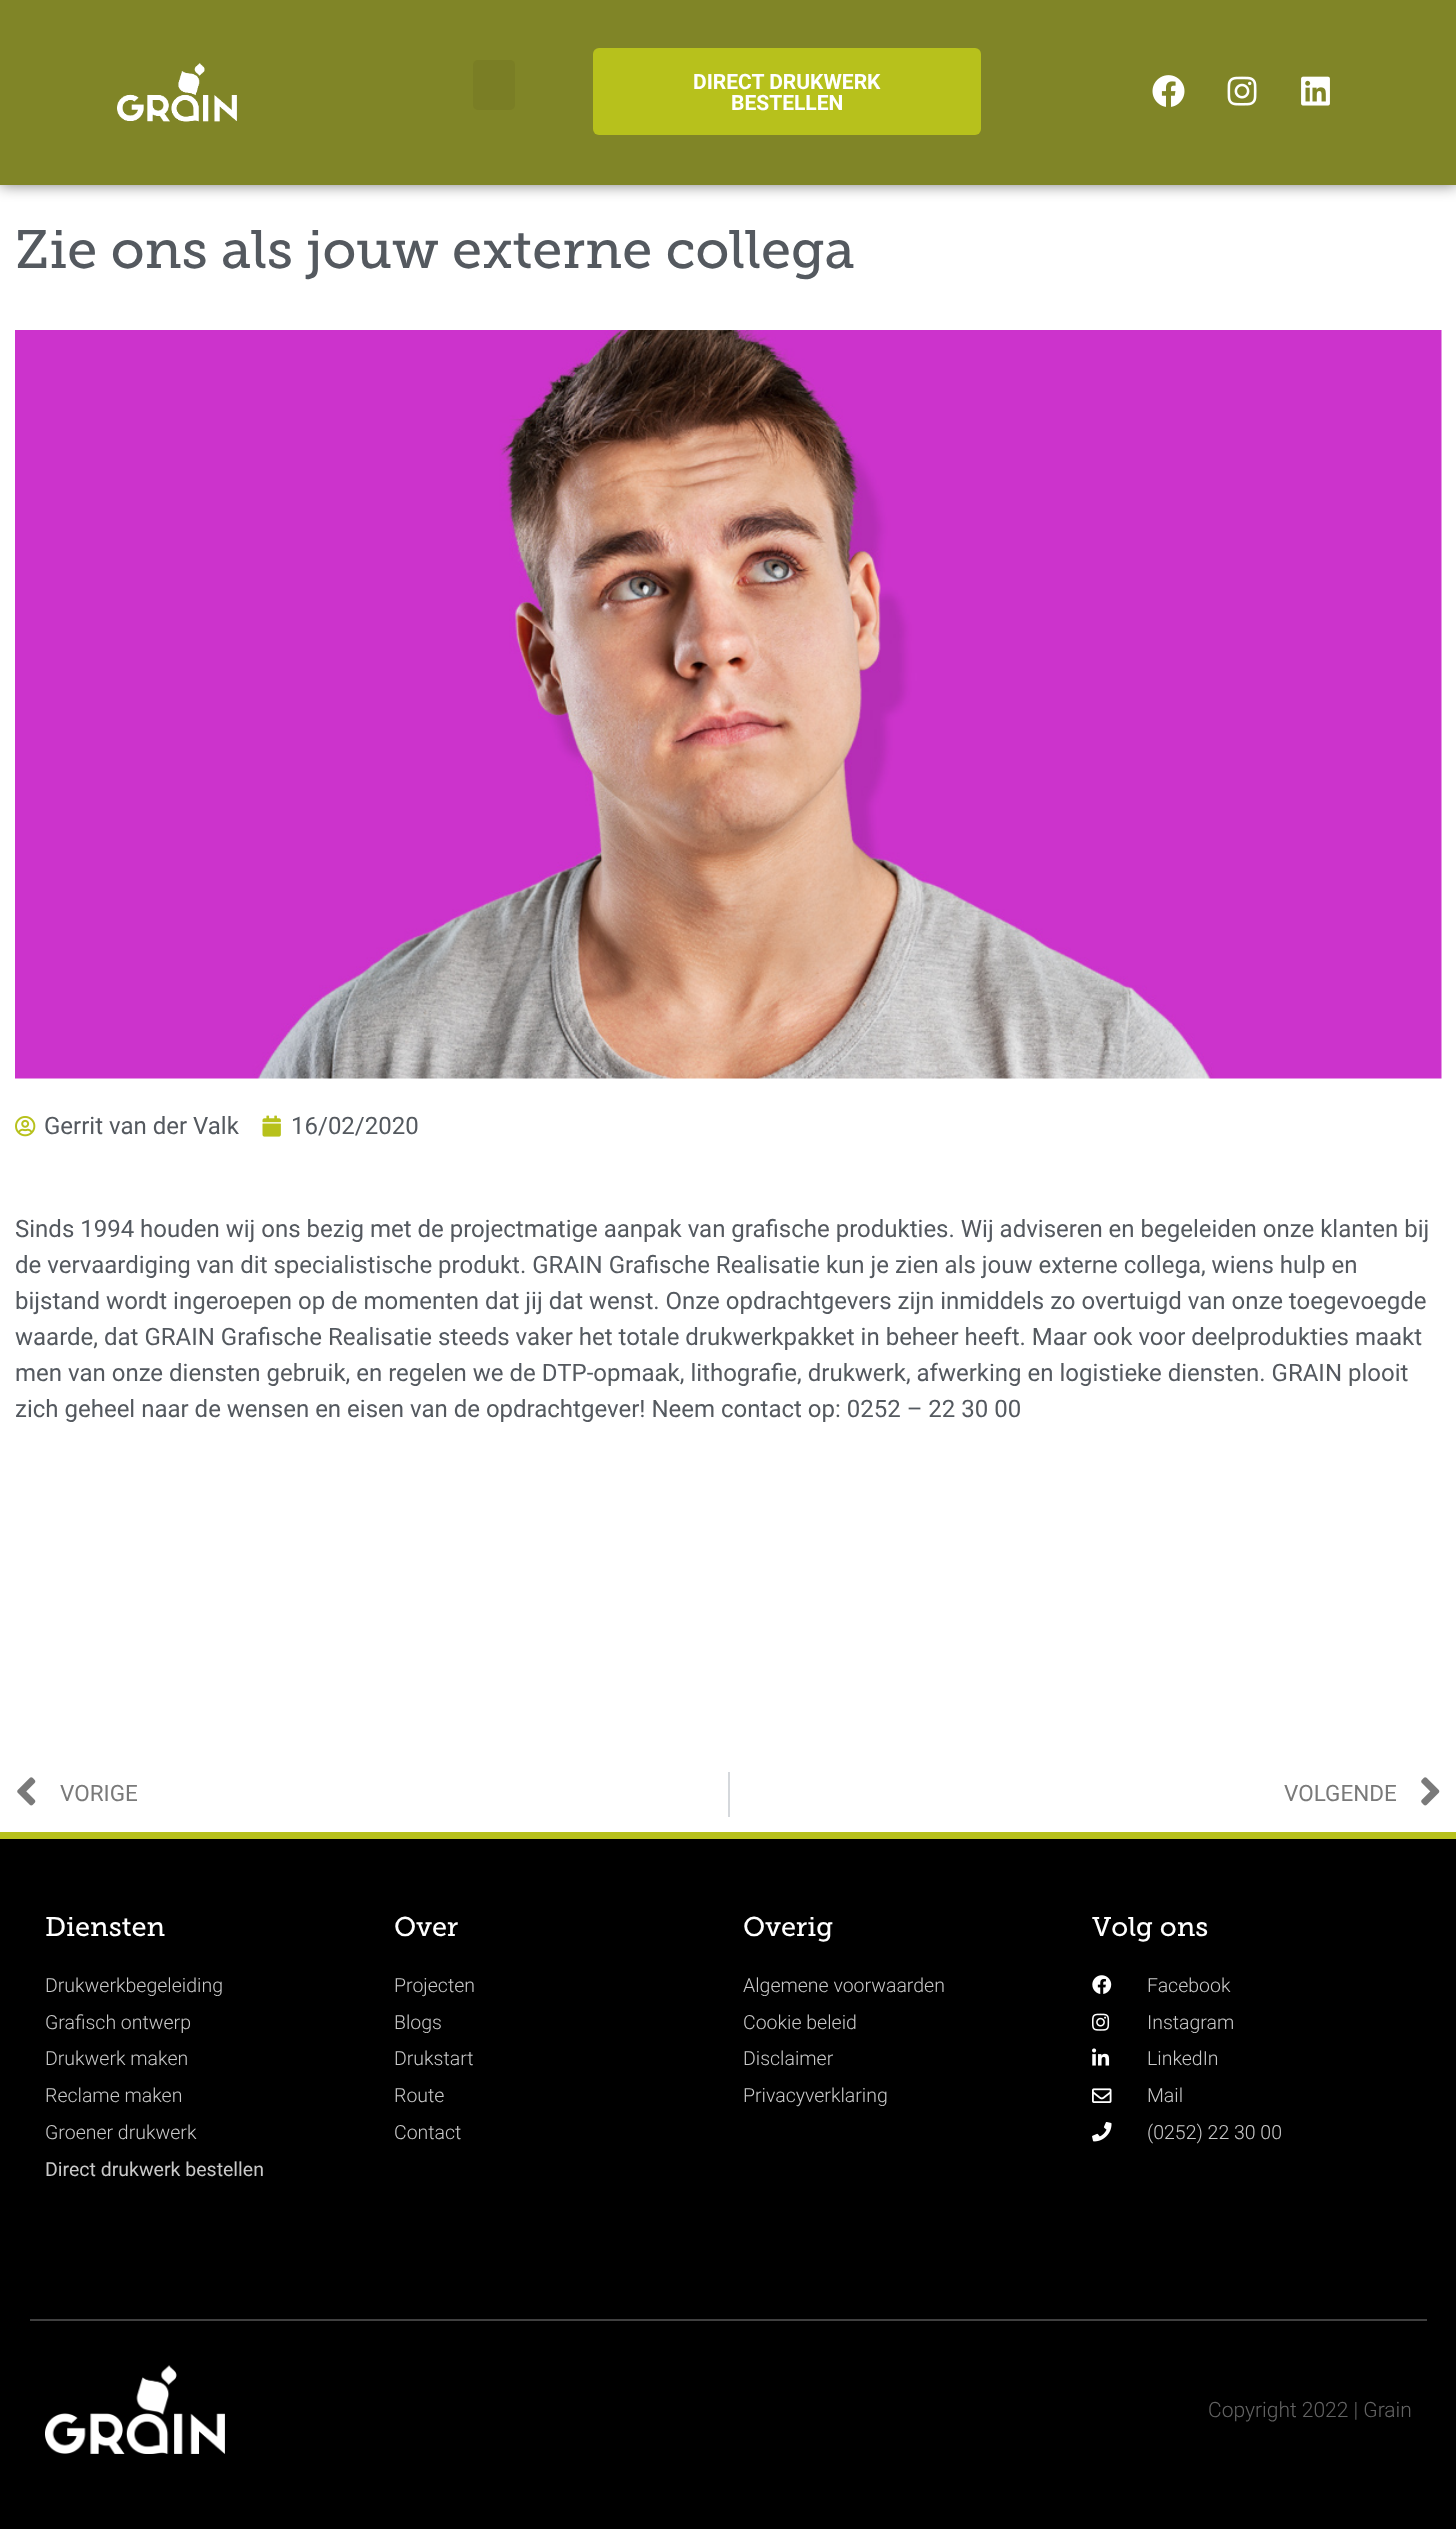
<svg xmlns="http://www.w3.org/2000/svg" width="1456" height="2533" viewBox="0 0 1456 2533">
  <rect width="100%" height="100%" fill="rgb(255,255,255)"/>
  <rect x="0" y="0" width="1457" height="185" fill="rgba(0,0,0,0.51)" filter="blur(7.5px)"/>
  <rect x="0" y="0" width="1456" height="185" fill="rgb(128,133,39)"/>
  <image x="117" y="63" width="120" height="59" href="pic1.png"/>
  <rect x="473" y="60" width="42" height="50" rx="5" fill="rgb(122,126,37)"/>
  <rect x="593" y="48" width="388" height="87" rx="6" fill="rgb(183,193,28)"/>
  <g font-family="Roboto" font-size="21" font-weight="bold" fill="rgb(255,255,255)">
    <text x="693" y="89">DIRECT DRUKWERK</text>
    <text x="731" y="110">BESTELLEN</text>
  </g>
  <image x="1152" y="75" width="33" height="32" href="pic2.png"/>
  <image x="1227" y="76" width="30" height="30" href="pic3.png"/>
  <image x="1301" y="76" width="29" height="30" href="pic4.png"/>
  <text x="15" y="268" font-family="'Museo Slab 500'" font-size="54" fill="rgb(84,89,95)">Zie ons als jouw externe collega</text>
  <image x="15" y="330" width="1427" height="749" href="pic5.png"/>
  <image x="15" y="1116" width="21" height="21" href="pic6.png"/>
  <text x="44" y="1134" font-family="Roboto" font-size="24" fill="rgb(84,89,95)">Gerrit van der Valk</text>
  <image x="262" y="1115" width="19" height="22" href="pic7.png"/>
  <g font-family="Roboto" font-size="24" fill="rgb(84,89,95)">
    <text x="291" y="1134">16/02/2020</text>
    <text>
      <tspan x="15" y="1237">Sinds 1994 houden wij ons bezig met de projectmatige aanpak van grafische produkties. Wij adviseren en begeleiden onze klanten bij</tspan>
      <tspan x="15" y="1273">de vervaardiging van dit specialistische produkt. GRAIN Grafische Realisatie kun je zien als jouw externe collega, wiens hulp en</tspan>
      <tspan x="15" y="1309">bijstand wordt ingeroepen op de momenten dat jij dat wenst. Onze opdrachtgevers zijn inmiddels zo overtuigd van onze toegevoegde</tspan>
      <tspan x="15" y="1345">waarde, dat GRAIN Grafische Realisatie steeds vaker het totale drukwerkpakket in beheer heeft. Maar ook voor deelprodukties maakt</tspan>
      <tspan x="15" y="1381">men van onze diensten gebruik, en regelen we de DTP-opmaak, lithografie, drukwerk, afwerking en logistieke diensten. GRAIN plooit</tspan>
      <tspan x="15" y="1417">zich geheel naar de wensen en eisen van de opdrachtgever! Neem contact op: 0252 – 22 30 00</tspan>
    </text>
  </g>
  <image x="17" y="1777" width="19" height="29" href="pic8.png"/>
  <text x="60" y="1801" font-family="Roboto" font-size="22.5" fill="rgb(122,122,122)">VORIGE</text>
  <rect x="728" y="1772" width="2" height="45" fill="rgb(213,216,220)"/>
  <text x="1284" y="1801" font-family="Roboto" font-size="22.5" fill="rgb(122,122,122)">VOLGENDE</text>
  <image x="1421" y="1777" width="19" height="29" href="pic9.png"/>
  <rect x="0" y="1839" width="1456" height="690" fill="rgb(0,0,0)"/>
  <rect x="0" y="1832" width="1456" height="7" fill="rgb(183,193,28)"/>
  <text x="45" y="1936" font-family="'Museo Slab 500'" font-size="27" fill="rgb(255,255,255)">Diensten</text>
  <g font-family="Roboto" font-size="19.5" font-weight="300" fill="rgb(201,201,201)">
    <text>
      <tspan x="45" y="1992">Drukwerkbegeleiding</tspan>
      <tspan x="45" y="2029">Grafisch ontwerp</tspan>
      <tspan x="45" y="2065">Drukwerk maken</tspan>
      <tspan x="45" y="2102">Reclame maken</tspan>
      <tspan x="45" y="2139">Groener drukwerk</tspan>
    </text>
  </g>
  <text x="45" y="2176" font-family="Roboto" font-size="19.5" fill="rgb(201,201,201)">Direct drukwerk bestellen</text>
  <text x="394" y="1936" font-family="'Museo Slab 500'" font-size="27" fill="rgb(255,255,255)">Over</text>
  <g font-family="Roboto" font-size="19.5" font-weight="300" fill="rgb(201,201,201)">
    <text>
      <tspan x="394" y="1992">Projecten</tspan>
      <tspan x="394" y="2029">Blogs</tspan>
      <tspan x="394" y="2065">Drukstart</tspan>
      <tspan x="394" y="2102">Route</tspan>
      <tspan x="394" y="2139">Contact</tspan>
    </text>
  </g>
  <text x="743" y="1936" font-family="'Museo Slab 500'" font-size="27" fill="rgb(255,255,255)">Overig</text>
  <g font-family="Roboto" font-size="19.5" font-weight="300" fill="rgb(201,201,201)">
    <text>
      <tspan x="743" y="1992">Algemene voorwaarden</tspan>
      <tspan x="743" y="2029">Cookie beleid</tspan>
      <tspan x="743" y="2065">Disclaimer</tspan>
      <tspan x="743" y="2102">Privacyverklaring</tspan>
    </text>
  </g>
  <text x="1092" y="1936" font-family="'Museo Slab 500'" font-size="27" fill="rgb(255,255,255)">Volg ons</text>
  <image x="1092" y="1975" width="20" height="19" href="pic10.png"/>
  <text x="1147" y="1992" font-family="Roboto" font-size="19.5" font-weight="300" fill="rgb(201,201,201)">Facebook</text>
  <image x="1092" y="2013" width="18" height="18" href="pic11.png"/>
  <text x="1147" y="2029" font-family="Roboto" font-size="19.5" font-weight="300" fill="rgb(201,201,201)">Instagram</text>
  <image x="1092" y="2048" width="18" height="18" href="pic12.png"/>
  <text x="1147" y="2065" font-family="Roboto" font-size="19.5" font-weight="300" fill="rgb(201,201,201)">LinkedIn</text>
  <image x="1092" y="2088" width="20" height="15" href="pic13.png"/>
  <text x="1147" y="2102" font-family="Roboto" font-size="19.5" font-weight="300" fill="rgb(201,201,201)">Mail</text>
  <image x="1092" y="2122" width="20" height="20" href="pic14.png"/>
  <text x="1147" y="2139" font-family="Roboto" font-size="19.5" font-weight="300" fill="rgb(201,201,201)">(0252) 22 30 00</text>
  <rect x="30" y="2319" width="1397" height="2" fill="rgb(64,64,64)"/>
  <image x="45" y="2365" width="180" height="89" href="pic15.png"/>
  <text x="1208" y="2417" font-family="Roboto" font-size="21" font-weight="300" fill="rgb(99,99,99)">Copyright 2022 | Grain</text>
</svg>
